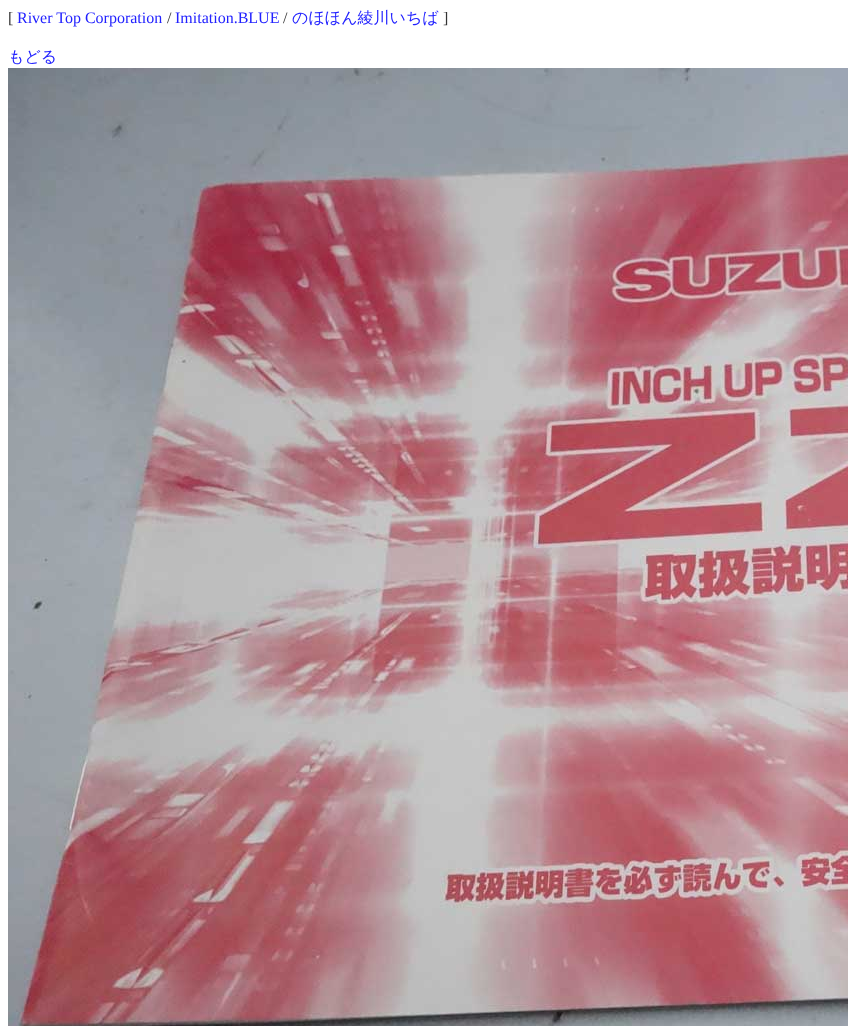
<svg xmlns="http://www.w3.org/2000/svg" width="848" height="1026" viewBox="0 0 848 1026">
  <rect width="100%" height="100%" fill="rgb(255,255,255)"/>
  <text x="8" y="23" font-family="Liberation Serif" font-size="16" fill="rgb(51,51,51)">[</text>
  <text x="17" y="23" font-family="Liberation Serif" font-size="16" fill="rgb(34,34,255)">River Top Corporation</text>
  <text x="167" y="23" font-family="Liberation Serif" font-size="16" fill="rgb(51,51,51)">/</text>
  <text x="175" y="23" font-family="Liberation Serif" font-size="16" fill="rgb(34,34,255)">Imitation.BLUE</text>
  <text x="283" y="23" font-family="Liberation Serif" font-size="16" fill="rgb(51,51,51)">/</text>
  <text x="292" y="23" font-family="WenQuanYi Zen Hei" font-size="16" font-weight="500" fill="rgb(34,34,255)">のほほん綾川いちば</text>
  <text x="443" y="23" font-family="Liberation Serif" font-size="16" fill="rgb(51,51,51)">]</text>
  <text x="8" y="62" font-family="WenQuanYi Zen Hei" font-size="16" font-weight="500" fill="rgb(34,34,255)">もどる</text>
  <image x="8" y="68" width="840" height="958" href="pic1.png"/>
</svg>
